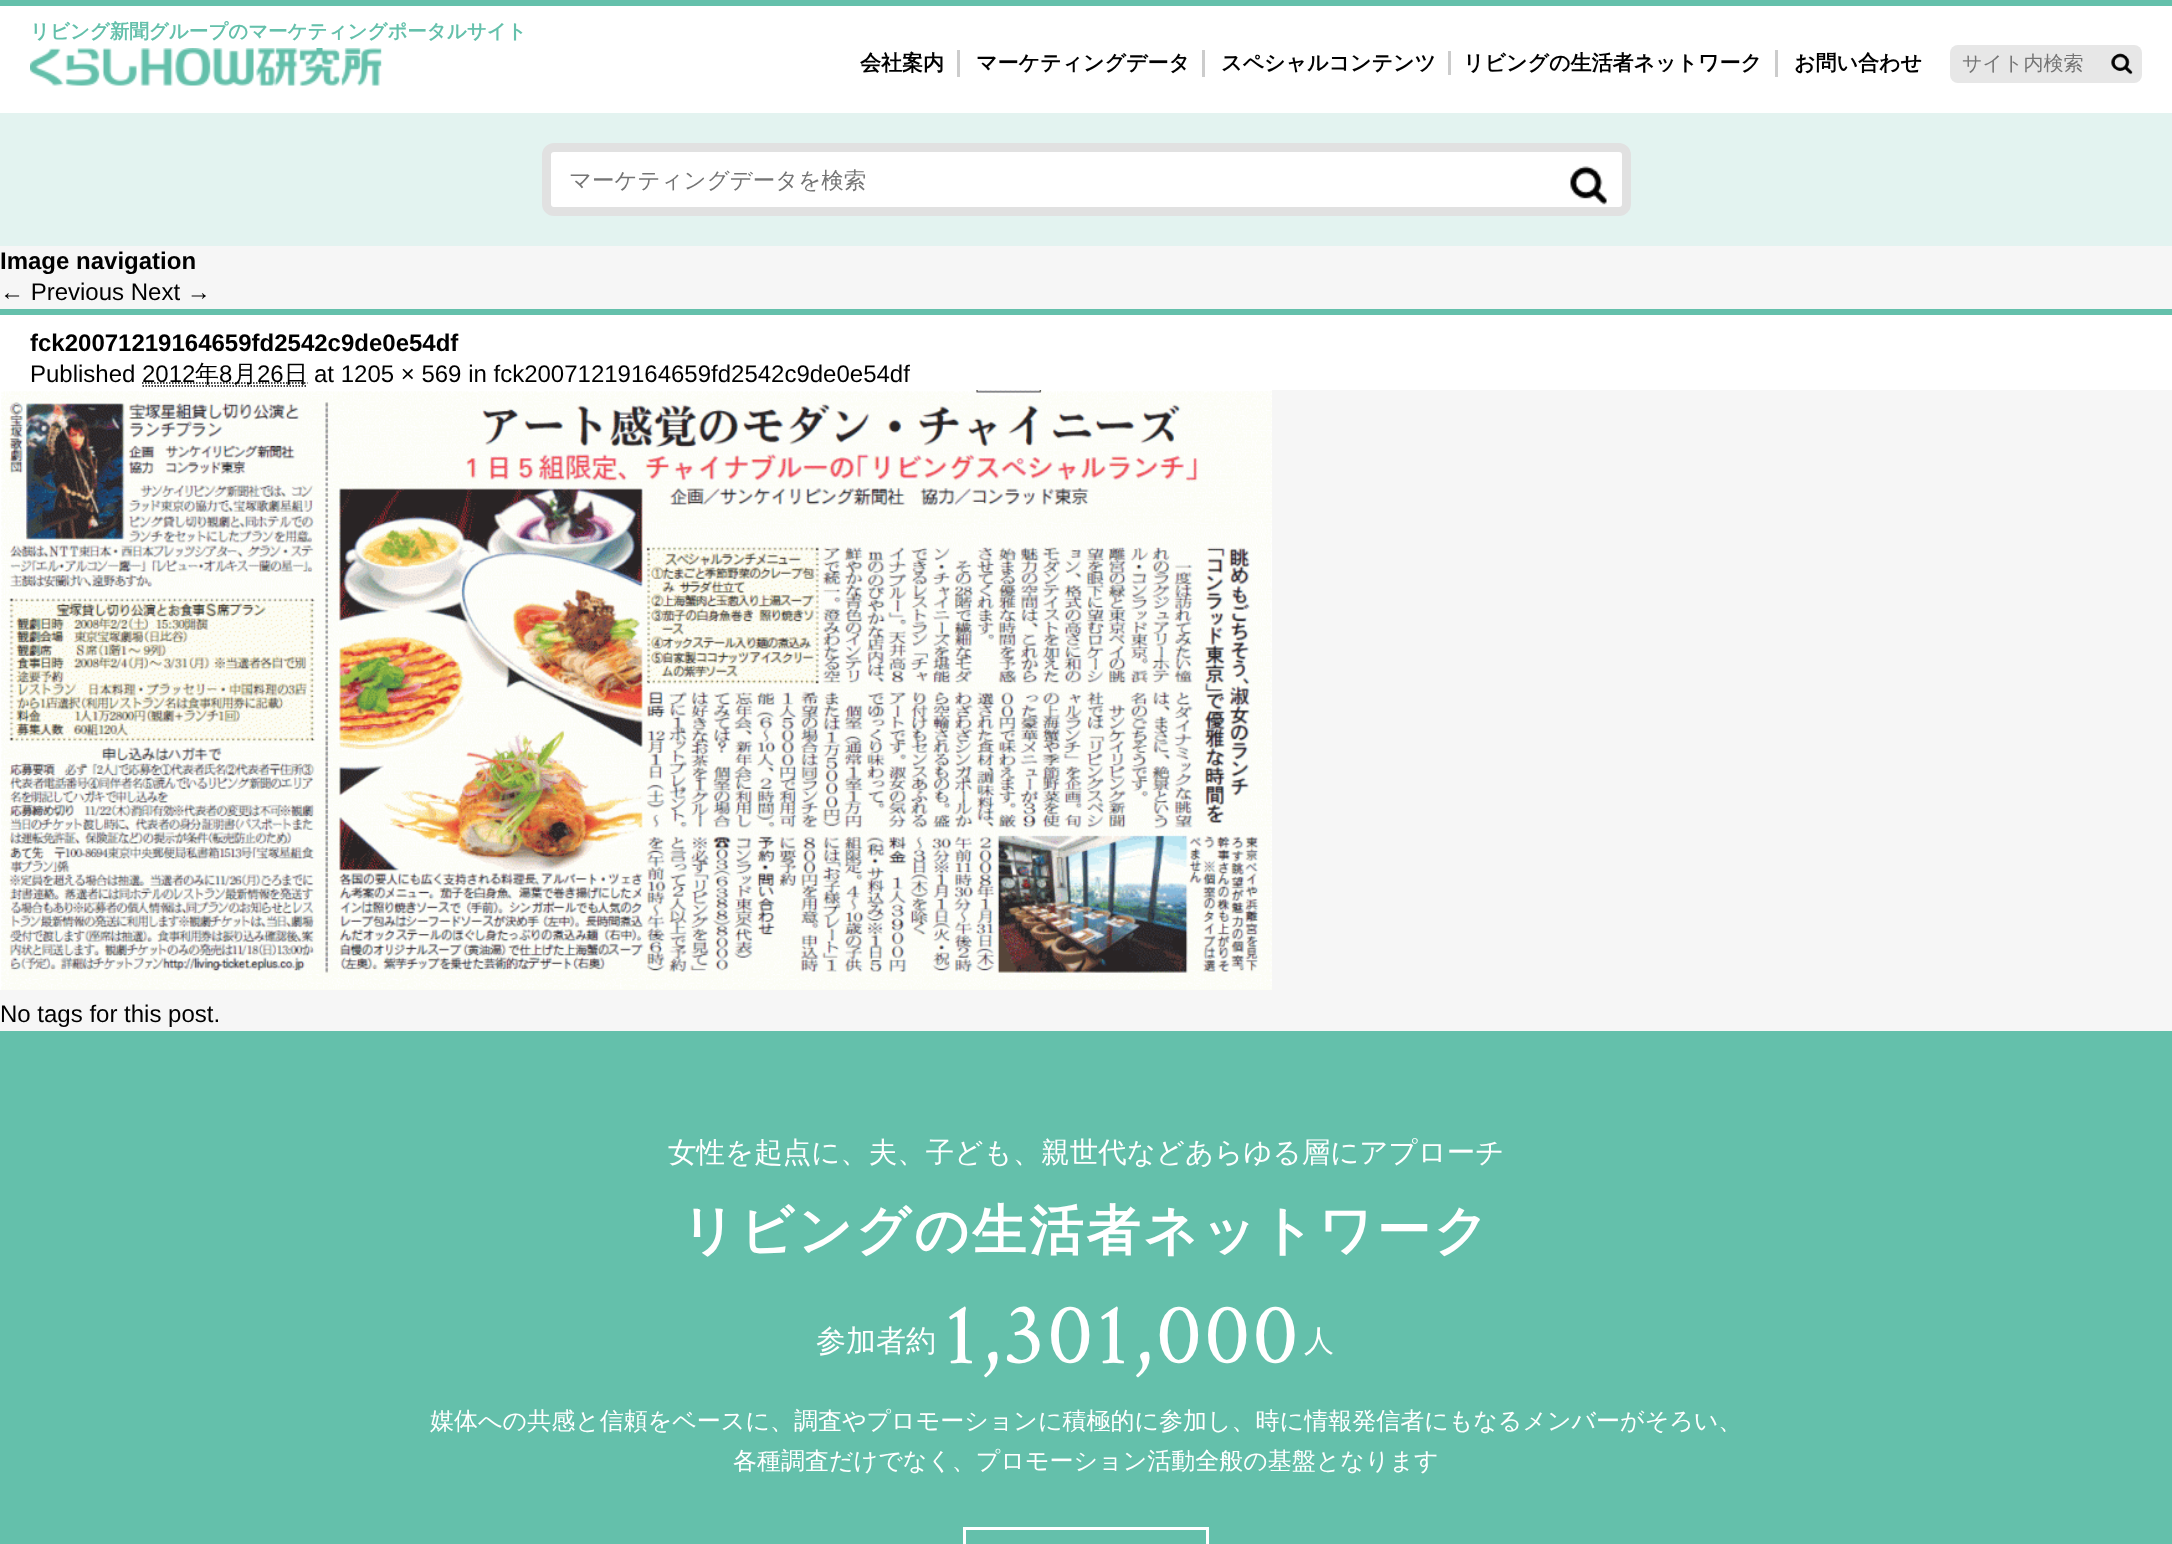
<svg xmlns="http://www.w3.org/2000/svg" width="2172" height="1544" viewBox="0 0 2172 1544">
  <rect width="100%" height="100%" fill="rgb(246,246,246)"/>
  <rect x="0" y="6" width="2172" height="107" fill="rgb(255,255,255)"/>
  <rect x="0" y="0" width="2172" height="6" fill="rgb(100,192,171)"/>
  <text x="30" y="38" font-family="WenQuanYi Zen Hei" font-size="19.5" font-weight="bold" fill="rgb(100,192,171)">リビング新聞グループのマーケティングポータルサイト</text>
  <image x="30" y="48" width="352" height="38" href="pic1.png"/>
  <rect x="957" y="50" width="3" height="27" fill="rgb(204,204,204)"/>
  <text x="860" y="70" font-family="WenQuanYi Zen Hei" font-size="21" font-weight="bold" fill="rgb(0,0,0)">会社案内</text>
  <rect x="1202" y="50" width="3" height="27" fill="rgb(204,204,204)"/>
  <g font-family="WenQuanYi Zen Hei" font-size="21" font-weight="bold" fill="rgb(0,0,0)">
    <text x="976" y="70">マーケティングデータ</text>
    <text x="1221" y="70">スペシャルコンテンツ</text>
  </g>
  <rect x="1448" y="51" width="3" height="24" fill="rgb(204,204,204)"/>
  <rect x="1775" y="50" width="3" height="27" fill="rgb(204,204,204)"/>
  <g font-family="WenQuanYi Zen Hei" font-size="21" font-weight="bold" fill="rgb(0,0,0)">
    <text x="1463" y="70">リビングの生活者ネットワーク</text>
    <text x="1794" y="70">お問い合わせ</text>
  </g>
  <rect x="1950" y="45" width="192" height="38" rx="8" fill="rgb(231,231,231)"/>
  <text x="1962" y="70" font-family="WenQuanYi Zen Hei" font-size="20" font-weight="500" fill="rgb(117,117,117)">サイト内検索</text>
  <image x="2111" y="53" width="22" height="22" href="pic2.png"/>
  <rect x="0" y="113" width="2172" height="133" fill="rgb(227,243,240)"/>
  <rect x="546.5" y="147.5" width="1080" height="64" rx="7.5" fill="rgb(255,255,255)" stroke="rgb(225,225,225)" stroke-width="9"/>
  <text x="569" y="188" font-family="WenQuanYi Zen Hei" font-size="22.5" font-weight="500" fill="rgb(117,117,117)">マーケティングデータを検索</text>
  <image x="1570" y="166" width="37" height="39" href="pic3.png"/>
  <text x="0" y="269" font-family="Liberation Sans" font-size="24" font-weight="bold" fill="rgb(0,0,0)">Image navigation</text>
  <text x="0" y="300" font-family="Liberation Sans" font-size="24" fill="rgb(0,0,0)">← Previous Next →</text>
  <rect x="0" y="315" width="2172" height="75" fill="rgb(255,255,255)"/>
  <rect x="0" y="309" width="2172" height="6" fill="rgb(100,192,171)"/>
  <text x="30" y="351" font-family="Liberation Sans" font-size="24" font-weight="bold" fill="rgb(0,0,0)">fck20071219164659fd2542c9de0e54df</text>
  <text x="30" y="382" font-family="Liberation Sans" font-size="24" fill="rgb(0,0,0)">Published</text>
  <path d="M142 383H307.5" fill="none" stroke="rgb(0,0,0)" stroke-width="1.5" stroke-dasharray="1.5 1.5"/>
  <text x="142" y="382" font-family="Liberation Sans" font-size="24" fill="rgb(0,0,0)">2012</text>
  <text x="195" y="382" font-family="WenQuanYi Zen Hei" font-size="24" font-weight="500" fill="rgb(0,0,0)">年</text>
  <text x="219" y="382" font-family="Liberation Sans" font-size="24" fill="rgb(0,0,0)">8</text>
  <path d="M142.5 386H307.5" fill="none" stroke="rgb(0,0,0)" stroke-width="1.5" stroke-dasharray="1.5 1.5"/>
  <text x="233" y="382" font-family="WenQuanYi Zen Hei" font-size="24" font-weight="500" fill="rgb(0,0,0)">月</text>
  <text x="257" y="382" font-family="Liberation Sans" font-size="24" fill="rgb(0,0,0)">26</text>
  <text x="284" y="382" font-family="WenQuanYi Zen Hei" font-size="24" font-weight="500" fill="rgb(0,0,0)">日</text>
  <text x="314" y="382" font-family="Liberation Sans" font-size="24" fill="rgb(0,0,0)">at 1205 × 569 in fck20071219164659fd2542c9de0e54df</text>
  <image x="0" y="390" width="1272" height="600" href="pic4.png"/>
  <text x="0" y="1022" font-family="Liberation Sans" font-size="24" fill="rgb(0,0,0)">No tags for this post.</text>
  <rect x="0" y="1031" width="2172" height="513" fill="rgb(100,192,171)"/>
  <text x="668" y="1162" font-family="WenQuanYi Zen Hei" font-size="28.5" font-weight="500" fill="rgb(255,255,255)">女性を起点に、夫、子ども、親世代などあらゆる層にアプローチ</text>
  <text x="681" y="1249" font-family="WenQuanYi Zen Hei" font-size="54" font-weight="bold" letter-spacing="3" fill="rgb(255,255,255)">リビングの生活者ネットワーク</text>
  <text x="816" y="1351" font-family="WenQuanYi Zen Hei" font-size="30" font-weight="500" fill="rgb(255,255,255)">参加者約</text>
  <text x="944" y="1363" font-family="Crimson Text" font-size="90" letter-spacing="3" fill="rgb(255,255,255)">1,301,000</text>
  <text x="1304" y="1351" font-family="WenQuanYi Zen Hei" font-size="30" font-weight="500" fill="rgb(255,255,255)">人</text>
  <g font-family="WenQuanYi Zen Hei" font-size="24" font-weight="500" fill="rgb(255,255,255)">
    <text x="430" y="1429">媒体への共感と信頼をベースに、調査やプロモーションに積極的に参加し、時に情報発信者にもなるメンバーがそろい、</text>
    <text x="733" y="1469">各種調査だけでなく、プロモーション活動全般の基盤となります</text>
  </g>
  <rect x="964.5" y="1528.5" width="243" height="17" fill="none" stroke="rgb(255,255,255)" stroke-width="3"/>
</svg>
